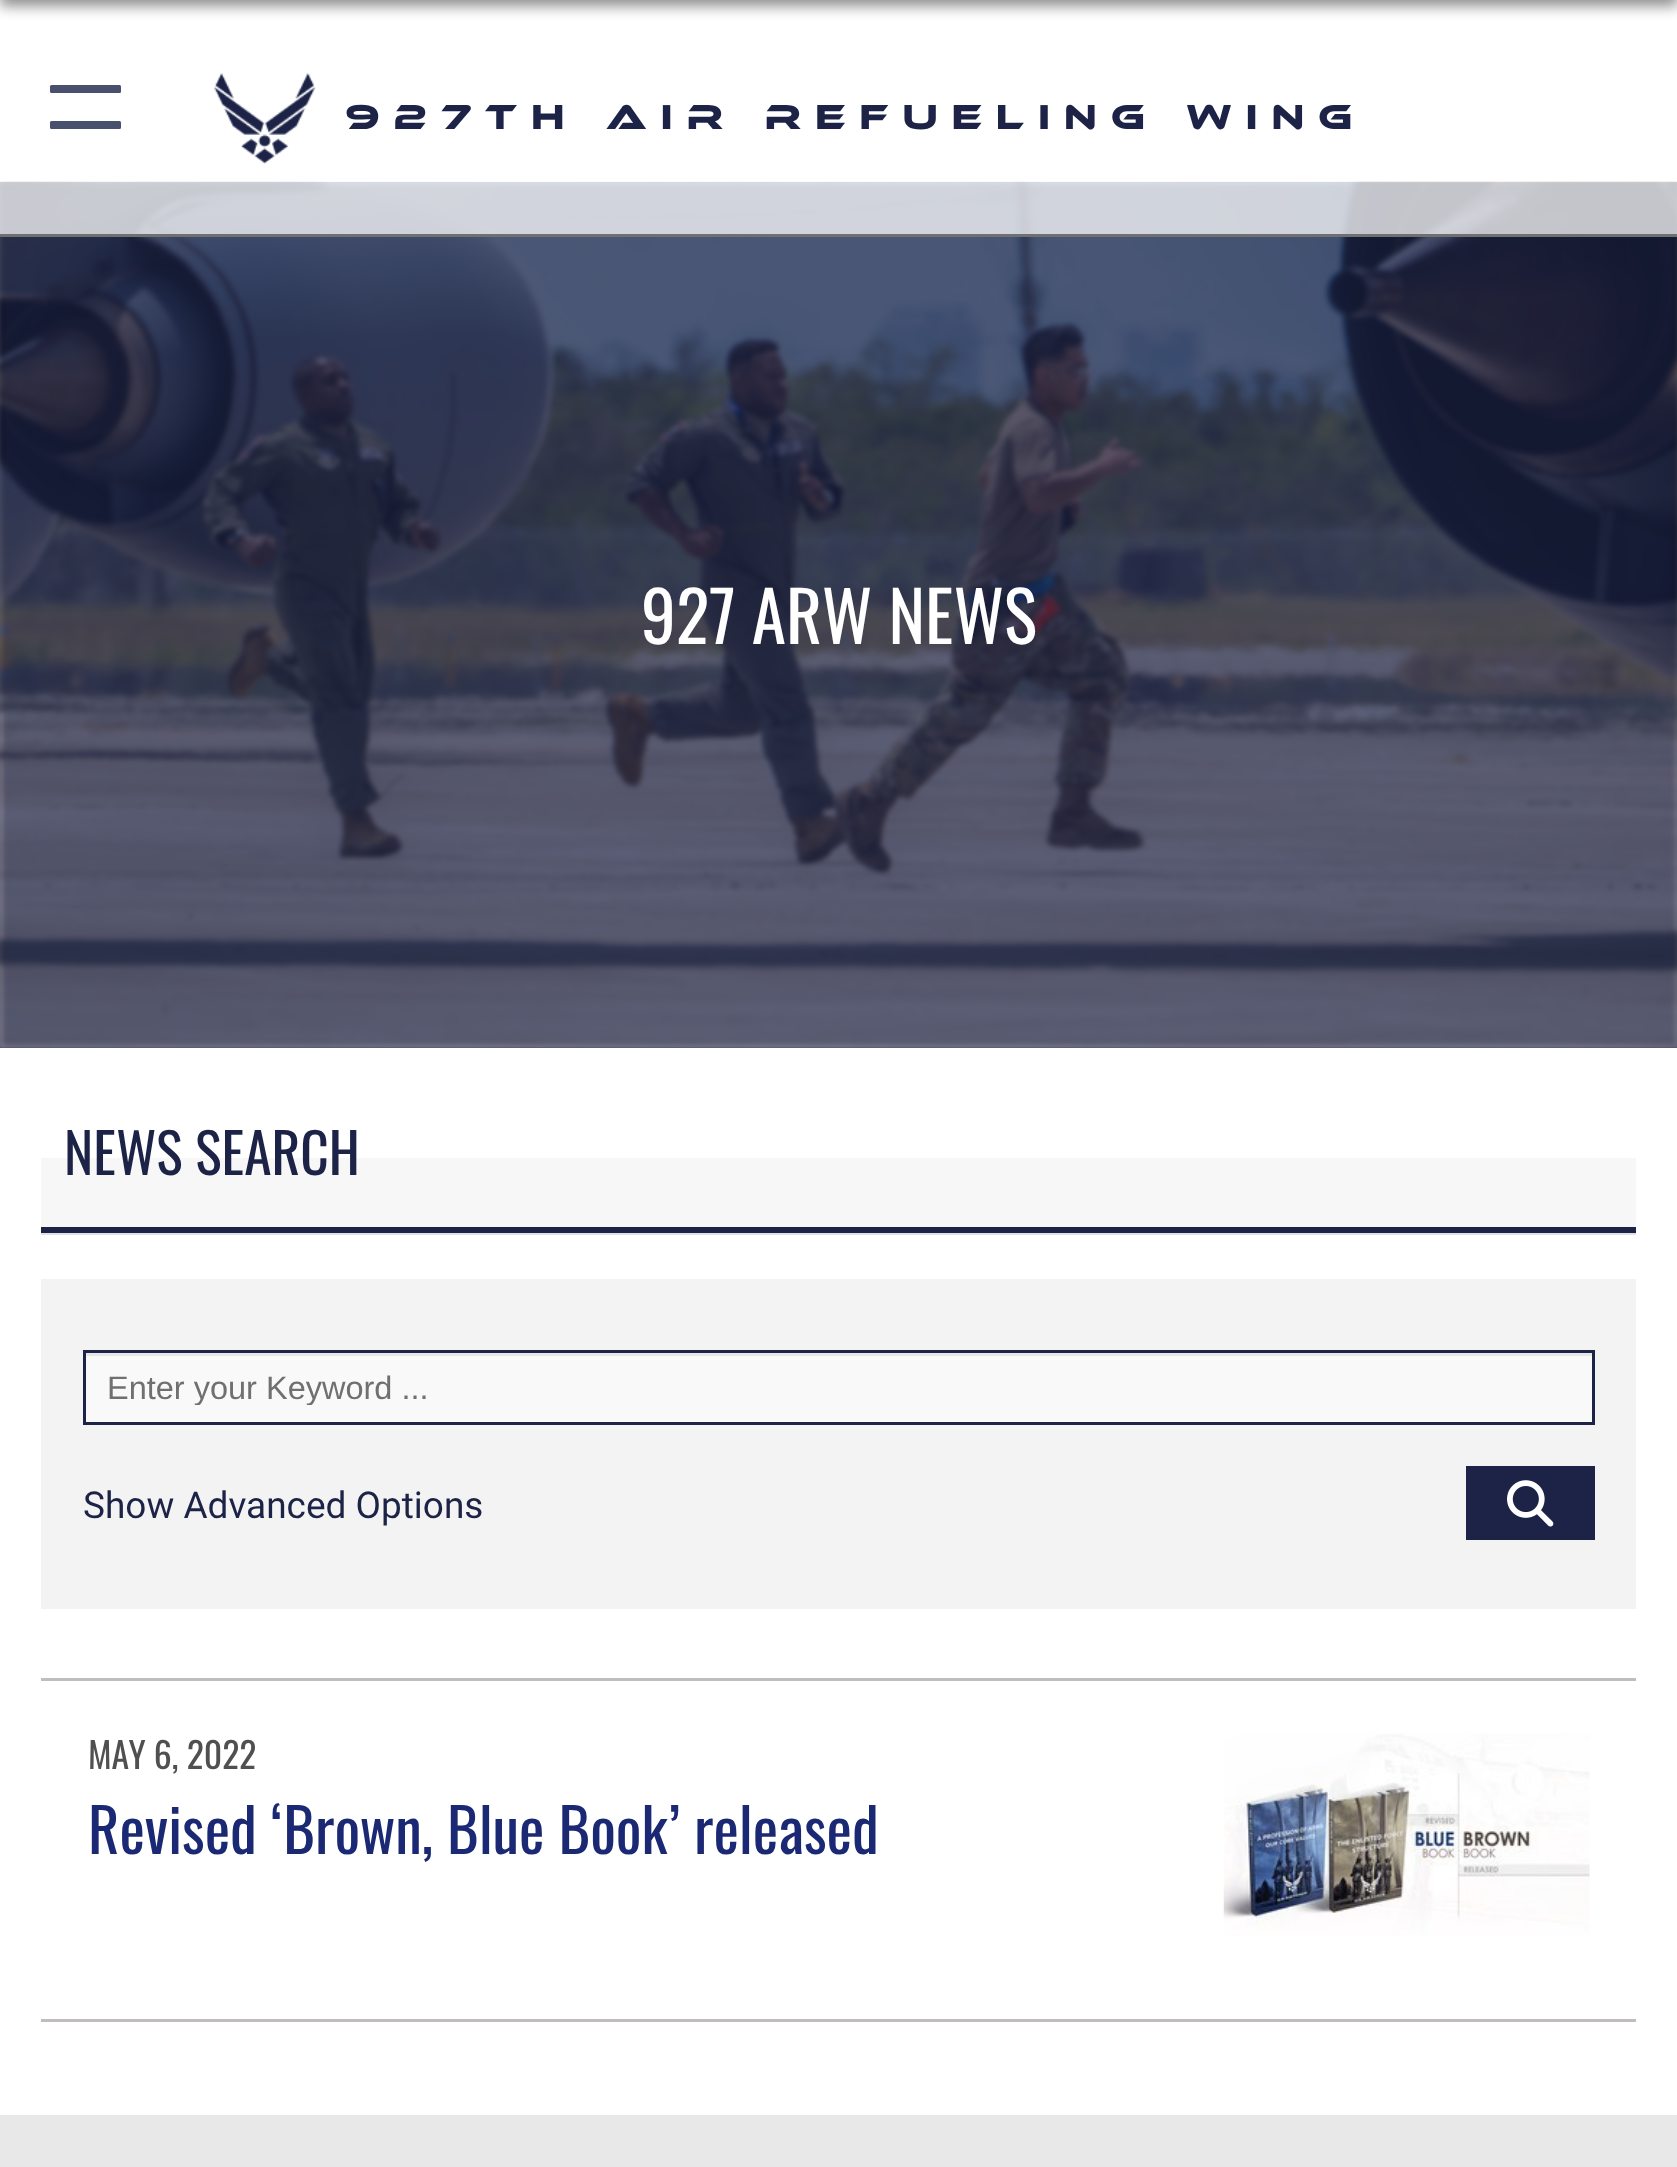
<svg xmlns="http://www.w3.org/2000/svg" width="1677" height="2167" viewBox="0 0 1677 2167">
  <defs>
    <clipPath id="clip1"><rect x="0" y="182" width="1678" height="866"/></clipPath>
    <linearGradient id="g1" gradientUnits="userSpaceOnUse" x1="839" y1="1116" x2="839" y2="1232"><stop offset="0" stop-color="rgb(255,255,255)"/><stop offset="0.36" stop-color="rgb(255,255,255)"/><stop offset="0.36" stop-color="rgb(247,247,247)"/><stop offset="1" stop-color="rgb(247,247,247)"/></linearGradient>
    <clipPath id="clip2"><rect x="107" y="1370" width="1463" height="35"/></clipPath>
  </defs>
  <rect width="100%" height="100%" fill="rgb(255,255,255)"/>
  <rect x="0" y="-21" width="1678" height="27" fill="rgba(26,26,26,0.5)" filter="blur(7px)"/>
  <rect x="0" y="182" width="1677" height="866" fill="rgb(74,79,108)"/>
  <image x="0" y="181" width="1677" height="867" href="pic2.png"/>
  <g clip-path="url(#clip1)">
    <rect x="0" y="182" width="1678" height="866" fill="rgba(28,35,71,0.7)" filter="blur(3px)"/>
  </g>
  <rect x="0" y="181" width="1677" height="53" fill="rgba(255,255,255,0.75)"/>
  <rect x="0" y="234" width="1677" height="3" fill="rgb(112,112,112)"/>
  <rect x="50" y="85" width="71" height="8" rx="1.5" fill="rgb(73,80,109)"/>
  <rect x="50" y="121" width="71" height="8" rx="1.5" fill="rgb(73,80,109)"/>
  <image x="214" y="72" width="102" height="92" href="pic1.png"/>
  <text x="345" y="129" font-family="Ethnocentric" font-size="35.75" letter-spacing="13.9" fill="rgb(28,35,71)">927th Air Refueling Wing</text>
  <text x="641" y="644" font-family="Oswald" font-size="69.5" fill="rgb(255,255,255)">927 ARW NEWS</text>
  <rect x="41" y="1158" width="1595" height="69" fill="url(#g1)"/>
  <rect x="41" y="1233" width="1595" height="2" fill="rgb(222,226,230)"/>
  <text x="64" y="1175" font-family="Oswald" font-size="55.5" fill="rgb(28,35,71)">NEWS SEARCH</text>
  <rect x="41" y="1227" width="1595" height="6" fill="rgb(28,35,71)"/>
  <rect x="41" y="1279" width="1595" height="330" fill="rgb(243,243,243)"/>
  <rect x="86" y="1356" width="1506" height="66" fill="rgb(249,249,249)"/>
  <rect x="85" y="1353" width="1507" height="3" fill="rgb(230,230,230)"/>
  <rect x="84.5" y="1351.5" width="1509" height="72" fill="none" stroke="rgb(28,35,71)" stroke-width="3"/>
  <g clip-path="url(#clip2)">
    <text x="107" y="1399" font-family="Liberation Sans" font-size="32.5" fill="rgb(112,112,112)">Enter your Keyword ...</text>
  </g>
  <rect x="1466" y="1466" width="129" height="74" fill="rgb(28,35,71)"/>
  <image x="1507" y="1480" width="47" height="47" href="pic3.png"/>
  <text x="83" y="1518" font-family="Roboto" font-size="37" fill="rgb(28,35,71)">Show Advanced Options</text>
  <rect x="41" y="1678" width="1595" height="3" fill="rgb(193,189,189)"/>
  <rect x="41" y="2019" width="1595" height="3" fill="rgb(193,189,189)"/>
  <text x="88" y="1769" font-family="Oswald" font-size="35.75" fill="rgb(80,80,80)">MAY 6, 2022</text>
  <text x="88" y="1854" font-family="Oswald" font-size="60.5" fill="rgb(27,41,116)">Revised ‘Brown, Blue Book’ released</text>
  <image x="1223" y="1733" width="367" height="203" href="pic4.png"/>
  <rect x="0" y="2115" width="1677" height="52" fill="rgb(232,232,232)"/>
</svg>
